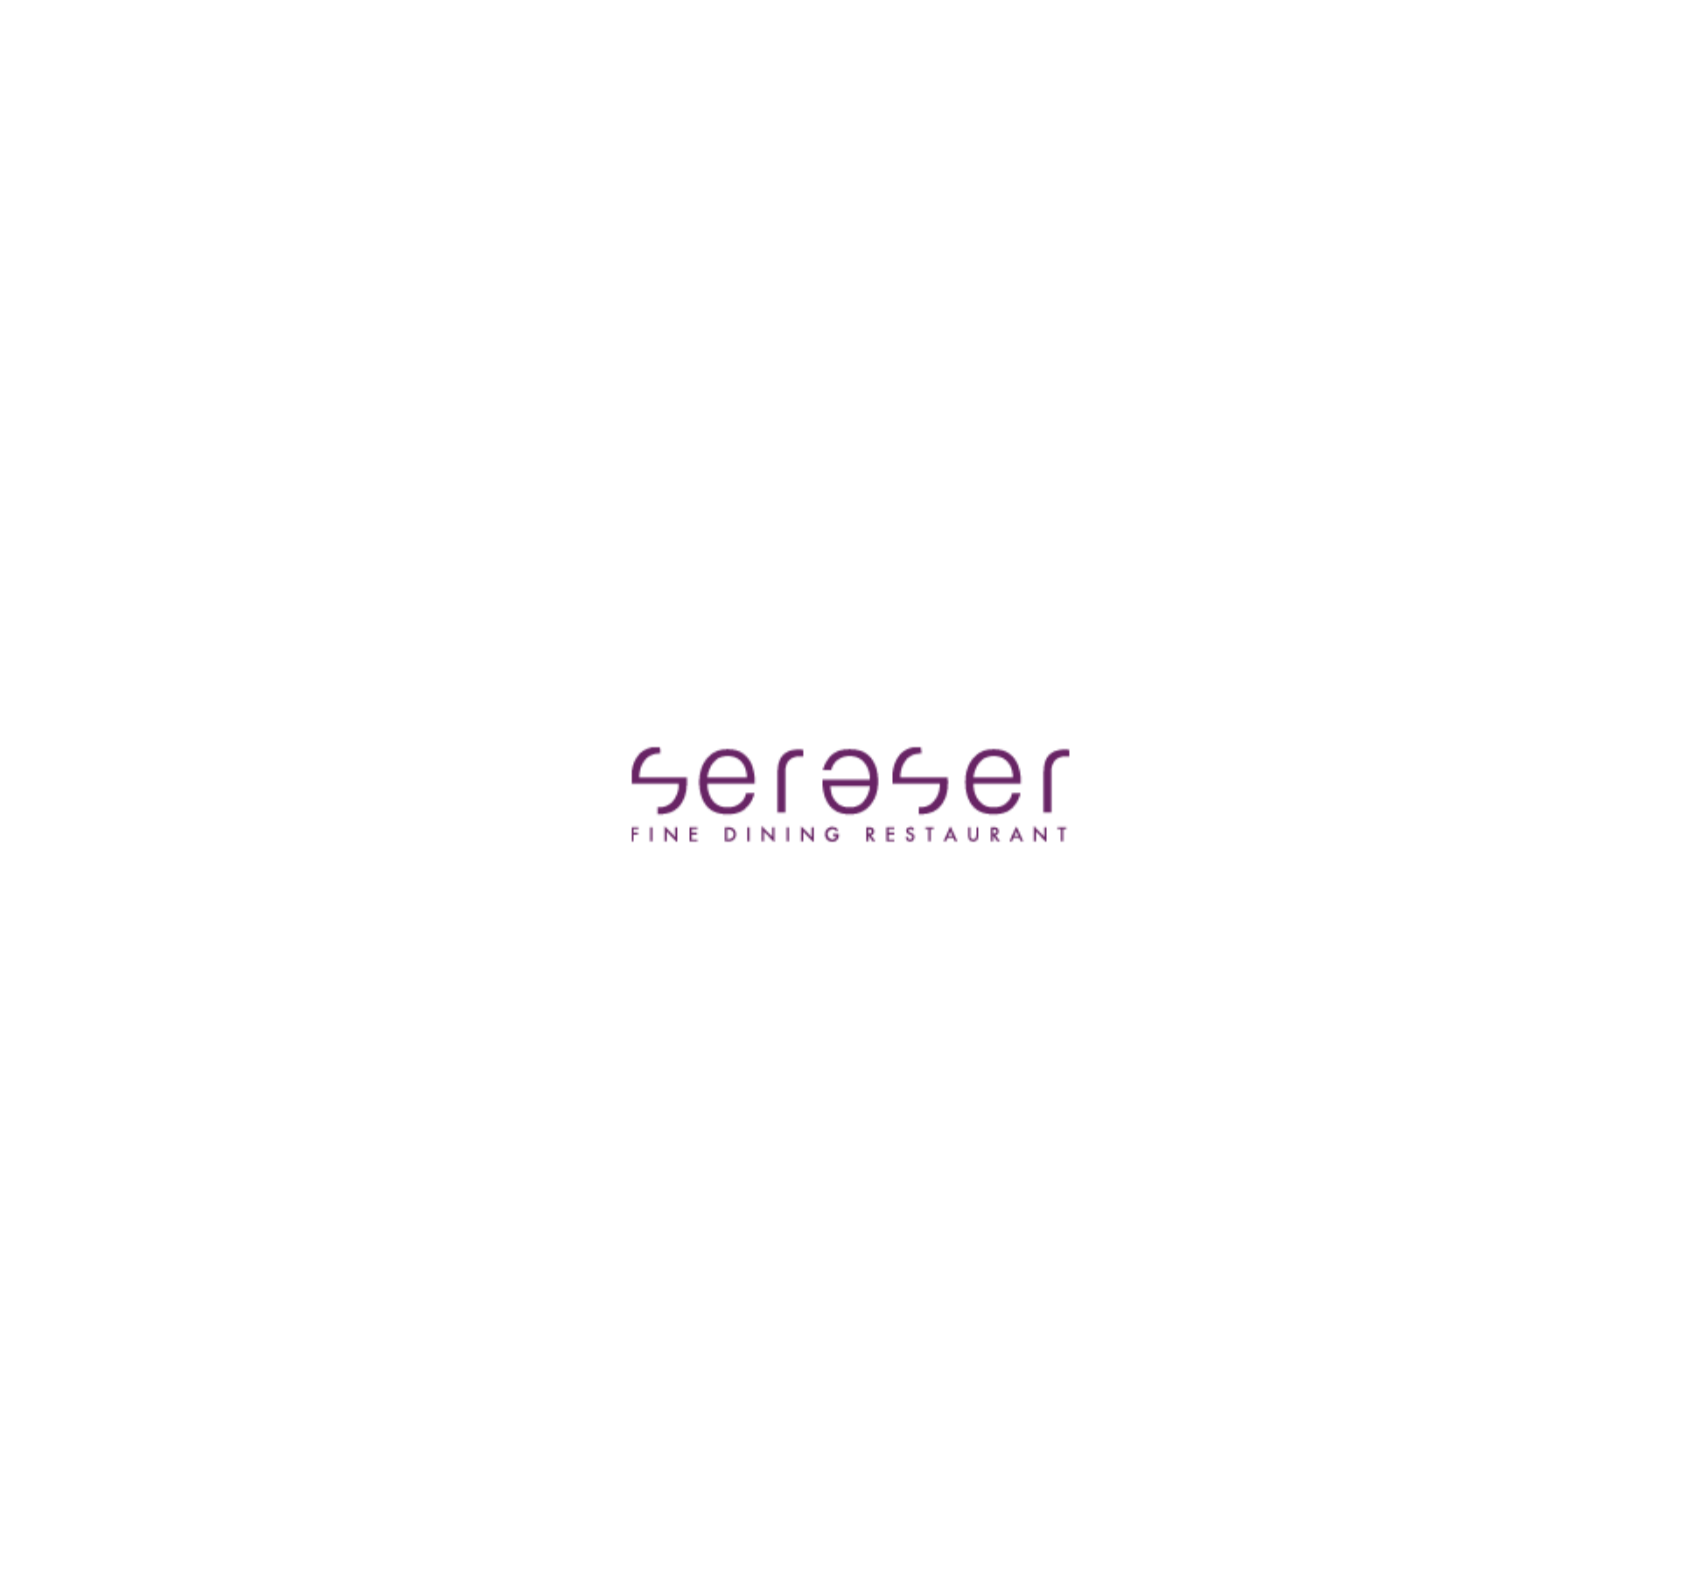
<svg xmlns="http://www.w3.org/2000/svg" width="1698" height="1585" viewBox="0 0 1698 1585">
  <rect width="100%" height="100%" fill="rgb(255,255,255)"/>
  <image x="631" y="746" width="439" height="97" href="pic1.png"/>
</svg>
